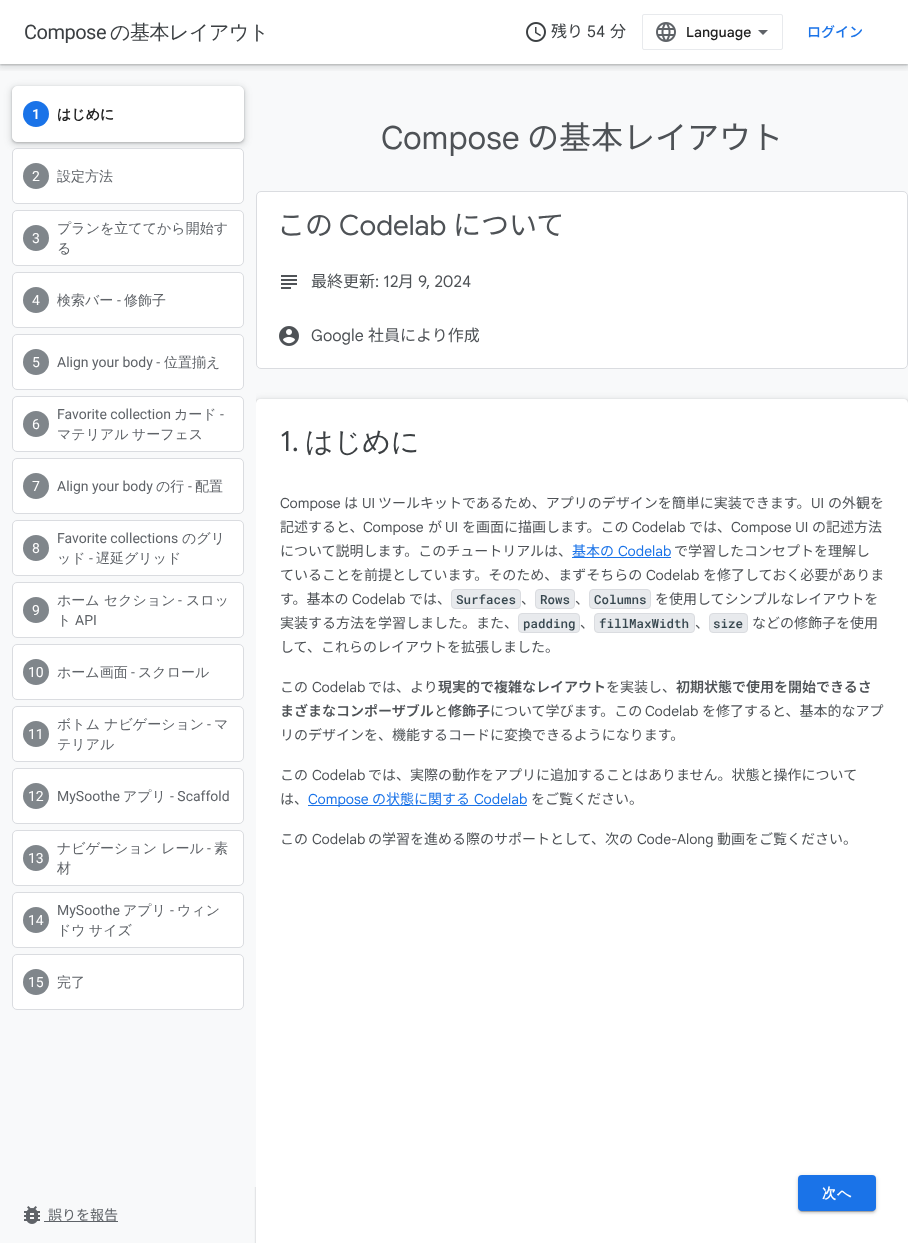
<svg xmlns="http://www.w3.org/2000/svg" width="908" height="1243" viewBox="0 0 908 1243">
  <defs>
    <clipPath id="clip1"><rect x="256" y="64" width="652" height="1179"/></clipPath>
    <clipPath id="clip2"><rect x="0" y="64" width="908" height="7"/></clipPath>
    <clipPath id="clip3"><rect x="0" y="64" width="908" height="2"/></clipPath>
  </defs>
  <rect width="100%" height="100%" fill="rgb(255,255,255)"/>
  <rect x="256" y="64" width="652" height="339" fill="rgb(248,249,250)"/>
  <rect x="0" y="1187" width="256" height="56" fill="rgb(248,249,250)"/>
  <g clip-path="url(#clip1)">
    <rect x="254" y="399" width="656" height="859" rx="6" fill="rgba(60,64,67,0.15)" filter="blur(3px)"/>
  </g>
  <rect x="256" y="400" width="652" height="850" rx="4" fill="rgba(60,64,67,0.3)" filter="blur(1px)"/>
  <rect x="0" y="64" width="256" height="1123" fill="rgb(248,249,250)"/>
  <g clip-path="url(#clip2)">
    <rect x="-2" y="0" width="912" height="68" fill="rgba(60,64,67,0.15)" filter="blur(3px)"/>
  </g>
  <g clip-path="url(#clip3)">
    <rect x="0" y="1" width="908" height="64" fill="rgba(60,64,67,0.3)" filter="blur(1px)"/>
  </g>
  <text x="24" y="39" font-family="Roboto" font-size="20" letter-spacing="-0.5" fill="rgb(60,64,67)">Compose</text>
  <text x="110" y="39" font-family="WenQuanYi Zen Hei" font-size="20" font-weight="500" letter-spacing="-0.5" fill="rgb(60,64,67)">の基本レイアウト</text>
  <image x="526" y="22" width="20" height="20" href="pic1.png"/>
  <text x="551" y="37" font-family="Noto Sans JP" font-size="16" fill="rgb(60,64,67)">残り</text>
  <text x="587" y="37" font-family="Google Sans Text" font-size="16" fill="rgb(60,64,67)">54</text>
  <text x="610" y="37" font-family="Noto Sans JP" font-size="16" fill="rgb(60,64,67)">分</text>
  <rect x="642.5" y="14.5" width="140" height="35" rx="1.5" fill="none" stroke="rgb(232,234,237)"/>
  <image x="656" y="22" width="20" height="20" href="pic2.png"/>
  <text x="686" y="37" font-family="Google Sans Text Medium" font-size="14" font-weight="500" fill="rgb(33,33,33)">Language</text>
  <path d="M763 35L758 30H768Z" fill="rgb(95,99,104)"/>
  <text x="807" y="37" font-family="Noto Sans JP" font-size="14" font-weight="500" fill="rgb(26,115,232)">ログイン</text>
  <rect x="10" y="86" width="236" height="60" rx="7" fill="rgba(60,64,67,0.15)" filter="blur(3px)"/>
  <rect x="12" y="87" width="232" height="56" rx="5" fill="rgba(60,64,67,0.3)" filter="blur(1px)"/>
  <rect x="12.5" y="86.5" width="231" height="55" rx="4.5" fill="rgb(255,255,255)" stroke="rgb(255,255,255)"/>
  <circle cx="36" cy="114" r="13" fill="rgb(26,115,232)"/>
  <text x="32" y="119" font-family="Roboto" font-size="14" font-weight="600" fill="rgb(255,255,255)">1</text>
  <text x="57" y="119" font-family="WenQuanYi Zen Hei" font-size="14" font-weight="bold" fill="rgb(33,33,33)">はじめに</text>
  <rect x="12.5" y="148.5" width="231" height="55" rx="4.5" fill="rgb(255,255,255)" stroke="rgb(218,220,224)"/>
  <circle cx="36" cy="176" r="13" fill="rgb(128,134,139)"/>
  <text x="32" y="181" font-family="Roboto" font-size="14" fill="rgb(255,255,255)">2</text>
  <text x="57" y="181" font-family="WenQuanYi Zen Hei" font-size="14" font-weight="500" fill="rgb(95,99,104)">設定方法</text>
  <rect x="12.5" y="210.5" width="231" height="55" rx="4.5" fill="rgb(255,255,255)" stroke="rgb(218,220,224)"/>
  <circle cx="36" cy="238" r="13" fill="rgb(128,134,139)"/>
  <text x="32" y="243" font-family="Roboto" font-size="14" fill="rgb(255,255,255)">3</text>
  <g font-family="WenQuanYi Zen Hei" font-size="14" font-weight="500" fill="rgb(95,99,104)">
    <text>
      <tspan x="57" y="233">プランを立ててから開始す</tspan>
      <tspan x="57" y="253">る</tspan>
    </text>
  </g>
  <rect x="12.5" y="272.5" width="231" height="55" rx="4.5" fill="rgb(255,255,255)" stroke="rgb(218,220,224)"/>
  <circle cx="36" cy="300" r="13" fill="rgb(128,134,139)"/>
  <text x="32" y="305" font-family="Roboto" font-size="14" fill="rgb(255,255,255)">4</text>
  <text x="57" y="305" font-family="WenQuanYi Zen Hei" font-size="14" font-weight="500" fill="rgb(95,99,104)">検索バー</text>
  <text x="117" y="305" font-family="Roboto" font-size="14" fill="rgb(95,99,104)">-</text>
  <text x="124" y="305" font-family="WenQuanYi Zen Hei" font-size="14" font-weight="500" fill="rgb(95,99,104)">修飾子</text>
  <rect x="12.5" y="334.5" width="231" height="55" rx="4.5" fill="rgb(255,255,255)" stroke="rgb(218,220,224)"/>
  <circle cx="36" cy="362" r="13" fill="rgb(128,134,139)"/>
  <text x="32" y="367" font-family="Roboto" font-size="14" fill="rgb(255,255,255)">5</text>
  <text x="57" y="367" font-family="Roboto" font-size="14" fill="rgb(95,99,104)">Align your body -</text>
  <text x="164" y="367" font-family="WenQuanYi Zen Hei" font-size="14" font-weight="500" fill="rgb(95,99,104)">位置揃え</text>
  <rect x="12.5" y="396.5" width="231" height="55" rx="4.5" fill="rgb(255,255,255)" stroke="rgb(218,220,224)"/>
  <circle cx="36" cy="424" r="13" fill="rgb(128,134,139)"/>
  <text x="32" y="429" font-family="Roboto" font-size="14" fill="rgb(255,255,255)">6</text>
  <text x="57" y="419" font-family="Roboto" font-size="14" fill="rgb(95,99,104)">Favorite collection</text>
  <text x="174" y="419" font-family="WenQuanYi Zen Hei" font-size="14" font-weight="500" fill="rgb(95,99,104)">カード</text>
  <text x="220" y="419" font-family="Roboto" font-size="14" fill="rgb(95,99,104)">-</text>
  <text x="57" y="439" word-spacing="-1" font-family="WenQuanYi Zen Hei" font-size="14" font-weight="500" fill="rgb(95,99,104)">マテリアル サーフェス</text>
  <rect x="12.5" y="458.5" width="231" height="55" rx="4.5" fill="rgb(255,255,255)" stroke="rgb(218,220,224)"/>
  <circle cx="36" cy="486" r="13" fill="rgb(128,134,139)"/>
  <text x="32" y="491" font-family="Roboto" font-size="14" fill="rgb(255,255,255)">7</text>
  <text x="57" y="491" font-family="Roboto" font-size="14" fill="rgb(95,99,104)">Align your body</text>
  <text x="156" y="491" font-family="WenQuanYi Zen Hei" font-size="14" font-weight="500" fill="rgb(95,99,104)">の行</text>
  <text x="188" y="491" font-family="Roboto" font-size="14" fill="rgb(95,99,104)">-</text>
  <text x="195" y="491" font-family="WenQuanYi Zen Hei" font-size="14" font-weight="500" fill="rgb(95,99,104)">配置</text>
  <rect x="12.5" y="520.5" width="231" height="55" rx="4.5" fill="rgb(255,255,255)" stroke="rgb(218,220,224)"/>
  <circle cx="36" cy="548" r="13" fill="rgb(128,134,139)"/>
  <text x="32" y="553" font-family="Roboto" font-size="14" fill="rgb(255,255,255)">8</text>
  <text x="57" y="543" font-family="Roboto" font-size="14" fill="rgb(95,99,104)">Favorite collections</text>
  <g font-family="WenQuanYi Zen Hei" font-size="14" font-weight="500" fill="rgb(95,99,104)">
    <text x="182" y="543">のグリ</text>
    <text x="57" y="563">ッド</text>
  </g>
  <text x="89" y="563" font-family="Roboto" font-size="14" fill="rgb(95,99,104)">-</text>
  <text x="96" y="563" font-family="WenQuanYi Zen Hei" font-size="14" font-weight="500" fill="rgb(95,99,104)">遅延グリッド</text>
  <rect x="12.5" y="582.5" width="231" height="55" rx="4.5" fill="rgb(255,255,255)" stroke="rgb(218,220,224)"/>
  <circle cx="36" cy="610" r="13" fill="rgb(128,134,139)"/>
  <text x="32" y="615" font-family="Roboto" font-size="14" fill="rgb(255,255,255)">9</text>
  <text x="57" y="605" font-family="WenQuanYi Zen Hei" font-size="14" font-weight="500" fill="rgb(95,99,104)">ホーム セクション</text>
  <text x="178" y="605" font-family="Roboto" font-size="14" fill="rgb(95,99,104)">-</text>
  <g font-family="WenQuanYi Zen Hei" font-size="14" font-weight="500" fill="rgb(95,99,104)">
    <text x="186" y="605">スロッ</text>
    <text x="57" y="625">ト</text>
  </g>
  <text x="75" y="625" font-family="Roboto" font-size="14" fill="rgb(95,99,104)">API</text>
  <rect x="12.5" y="644.5" width="231" height="55" rx="4.5" fill="rgb(255,255,255)" stroke="rgb(218,220,224)"/>
  <circle cx="36" cy="672" r="13" fill="rgb(128,134,139)"/>
  <text x="28" y="677" font-family="Roboto" font-size="14" fill="rgb(255,255,255)">10</text>
  <text x="57" y="677" font-family="WenQuanYi Zen Hei" font-size="14" font-weight="500" fill="rgb(95,99,104)">ホーム画面</text>
  <text x="131" y="677" font-family="Roboto" font-size="14" fill="rgb(95,99,104)">-</text>
  <text x="138" y="677" font-family="WenQuanYi Zen Hei" font-size="14" font-weight="500" fill="rgb(95,99,104)">スクロール</text>
  <rect x="12.5" y="706.5" width="231" height="55" rx="4.5" fill="rgb(255,255,255)" stroke="rgb(218,220,224)"/>
  <circle cx="36" cy="734" r="13" fill="rgb(128,134,139)"/>
  <text x="28" y="739" font-family="Roboto" font-size="14" fill="rgb(255,255,255)">11</text>
  <text x="57" y="729" font-family="WenQuanYi Zen Hei" font-size="14" font-weight="500" fill="rgb(95,99,104)">ボトム ナビゲーション</text>
  <text x="207" y="729" font-family="Roboto" font-size="14" fill="rgb(95,99,104)">-</text>
  <g font-family="WenQuanYi Zen Hei" font-size="14" font-weight="500" fill="rgb(95,99,104)">
    <text x="214" y="729">マ</text>
    <text x="57" y="749">テリアル</text>
  </g>
  <rect x="12.5" y="768.5" width="231" height="55" rx="4.5" fill="rgb(255,255,255)" stroke="rgb(218,220,224)"/>
  <circle cx="36" cy="796" r="13" fill="rgb(128,134,139)"/>
  <text x="28" y="801" font-family="Roboto" font-size="14" fill="rgb(255,255,255)">12</text>
  <text x="57" y="801" font-family="Roboto" font-size="14" fill="rgb(95,99,104)">MySoothe</text>
  <text x="123" y="801" font-family="WenQuanYi Zen Hei" font-size="14" font-weight="500" fill="rgb(95,99,104)">アプリ</text>
  <text x="170" y="801" font-family="Roboto" font-size="14" fill="rgb(95,99,104)">- Scaffold</text>
  <rect x="12.5" y="830.5" width="231" height="55" rx="4.5" fill="rgb(255,255,255)" stroke="rgb(218,220,224)"/>
  <circle cx="36" cy="858" r="13" fill="rgb(128,134,139)"/>
  <text x="28" y="863" font-family="Roboto" font-size="14" fill="rgb(255,255,255)">13</text>
  <text x="57" y="853" font-family="WenQuanYi Zen Hei" font-size="14" font-weight="500" fill="rgb(95,99,104)">ナビゲーション レール</text>
  <text x="207" y="853" font-family="Roboto" font-size="14" fill="rgb(95,99,104)">-</text>
  <g font-family="WenQuanYi Zen Hei" font-size="14" font-weight="500" fill="rgb(95,99,104)">
    <text x="214" y="853">素</text>
    <text x="57" y="873">材</text>
  </g>
  <rect x="12.5" y="892.5" width="231" height="55" rx="4.5" fill="rgb(255,255,255)" stroke="rgb(218,220,224)"/>
  <circle cx="36" cy="920" r="13" fill="rgb(128,134,139)"/>
  <text x="28" y="925" font-family="Roboto" font-size="14" fill="rgb(255,255,255)">14</text>
  <text x="57" y="915" font-family="Roboto" font-size="14" fill="rgb(95,99,104)">MySoothe</text>
  <text x="123" y="915" font-family="WenQuanYi Zen Hei" font-size="14" font-weight="500" fill="rgb(95,99,104)">アプリ</text>
  <text x="170" y="915" font-family="Roboto" font-size="14" fill="rgb(95,99,104)">-</text>
  <g font-family="WenQuanYi Zen Hei" font-size="14" font-weight="500" fill="rgb(95,99,104)">
    <text x="177" y="915">ウィン</text>
    <text x="57" y="935" word-spacing="-1">ドウ サイズ</text>
  </g>
  <rect x="12.5" y="954.5" width="231" height="55" rx="4.5" fill="rgb(255,255,255)" stroke="rgb(218,220,224)"/>
  <circle cx="36" cy="982" r="13" fill="rgb(128,134,139)"/>
  <text x="28" y="987" font-family="Roboto" font-size="14" fill="rgb(255,255,255)">15</text>
  <text x="57" y="987" font-family="WenQuanYi Zen Hei" font-size="14" font-weight="500" fill="rgb(95,99,104)">完了</text>
  <text x="381" y="149" font-family="Google Sans Text" font-size="32" fill="rgb(78,82,86)">Compose</text>
  <text x="527" y="149" font-family="Noto Sans JP" font-size="32" fill="rgb(78,82,86)">の基本レイアウト</text>
  <rect x="256.5" y="191.5" width="651" height="177" rx="4.5" fill="rgb(255,255,255)" stroke="rgb(218,220,224)"/>
  <text x="277" y="235" font-family="Noto Sans JP" font-size="28" fill="rgb(78,82,86)">この</text>
  <text x="339" y="235" font-family="Google Sans" font-size="28" fill="rgb(78,82,86)">Codelab</text>
  <text x="453" y="235" font-family="Noto Sans JP" font-size="28" fill="rgb(78,82,86)">について</text>
  <image x="281" y="275" width="16" height="14" href="pic3.png"/>
  <text x="311" y="287" font-family="Noto Sans JP" font-size="16" fill="rgb(78,82,86)">最終更新</text>
  <text x="375" y="287" font-family="Google Sans Text" font-size="16" fill="rgb(78,82,86)">: 12</text>
  <text x="398" y="287" font-family="Noto Sans JP" font-size="16" fill="rgb(78,82,86)">月</text>
  <text x="418" y="287" font-family="Google Sans Text" font-size="16" fill="rgb(78,82,86)">9, 2024</text>
  <image x="279" y="326" width="20" height="20" href="pic4.png"/>
  <text x="311" y="341" font-family="Google Sans Text" font-size="16" fill="rgb(78,82,86)">Google</text>
  <text x="368" y="341" font-family="Noto Sans JP" font-size="16" fill="rgb(78,82,86)">社員により作成</text>
  <path d="M260 399H904C906 399 908 401 908 403V1243H256V403C256 401 258 399 260 399Z" fill="rgb(255,255,255)"/>
  <text x="280" y="451" font-family="Google Sans" font-size="28" fill="rgb(60,64,67)">1.</text>
  <text x="305" y="451" font-family="WenQuanYi Zen Hei" font-size="28" font-weight="500" fill="rgb(60,64,67)">はじめに</text>
  <text x="280" y="508" font-family="Google Sans Text" font-size="14" fill="rgb(78,82,86)">Compose</text>
  <text x="344" y="508" font-family="Noto Sans JP" font-size="14" fill="rgb(78,82,86)">は</text>
  <text x="362" y="508" font-family="Google Sans Text" font-size="14" fill="rgb(78,82,86)">UI</text>
  <text x="378" y="508" font-family="Noto Sans JP" font-size="14" fill="rgb(78,82,86)">ツールキットであるため、アプリのデザインを簡単に実装できます。</text>
  <text x="811" y="508" font-family="Google Sans Text" font-size="14" fill="rgb(78,82,86)">UI</text>
  <g font-family="Noto Sans JP" font-size="14" fill="rgb(78,82,86)">
    <text x="828" y="508">の外観を</text>
    <text x="280" y="532">記述すると、</text>
  </g>
  <text x="363" y="532" font-family="Google Sans Text" font-size="14" fill="rgb(78,82,86)">Compose</text>
  <text x="428" y="532" font-family="Noto Sans JP" font-size="14" fill="rgb(78,82,86)">が</text>
  <text x="445" y="532" font-family="Google Sans Text" font-size="14" fill="rgb(78,82,86)">UI</text>
  <text x="462" y="532" font-family="Noto Sans JP" font-size="14" fill="rgb(78,82,86)">を画面に描画します。この</text>
  <text x="632" y="532" font-family="Google Sans Text" font-size="14" fill="rgb(78,82,86)">Codelab</text>
  <text x="689" y="532" font-family="Noto Sans JP" font-size="14" fill="rgb(78,82,86)">では、</text>
  <text x="731" y="532" font-family="Google Sans Text" font-size="14" fill="rgb(78,82,86)">Compose UI</text>
  <g font-family="Noto Sans JP" font-size="14" fill="rgb(78,82,86)">
    <text x="812" y="532">の記述方法</text>
    <text x="280" y="556">について説明します。このチュートリアルは、</text>
  </g>
  <rect x="572" y="557" width="99" height="1" fill="rgb(26,115,232)"/>
  <text x="572" y="556" font-family="Noto Sans JP" font-size="14" fill="rgb(26,115,232)">基本の</text>
  <text x="618" y="556" font-family="Google Sans Text" font-size="14" fill="rgb(26,115,232)">Codelab</text>
  <g font-family="Noto Sans JP" font-size="14" fill="rgb(78,82,86)">
    <text x="674" y="556">で学習したコンセプトを理解し</text>
    <text x="280" y="580">ていることを前提としています。そのため、まずそちらの</text>
  </g>
  <text x="646" y="580" font-family="Google Sans Text" font-size="14" fill="rgb(78,82,86)">Codelab</text>
  <g font-family="Noto Sans JP" font-size="14" fill="rgb(78,82,86)">
    <text x="703" y="580">を修了しておく必要がありま</text>
    <text x="280" y="604">す。基本の</text>
  </g>
  <text x="352" y="604" font-family="Google Sans Text" font-size="14" fill="rgb(78,82,86)">Codelab</text>
  <text x="409" y="604" font-family="Noto Sans JP" font-size="14" fill="rgb(78,82,86)">では、</text>
  <rect x="451.5" y="589.5" width="69" height="19" rx="3.5" fill="rgb(232,234,237)" stroke="rgb(218,220,224)"/>
  <text x="456" y="604" font-family="Roboto Mono" font-size="12.5" font-weight="500" fill="rgb(55,71,79)">Surfaces</text>
  <text x="521" y="604" font-family="Noto Sans JP" font-size="14" fill="rgb(78,82,86)">、</text>
  <rect x="535.5" y="589.5" width="39" height="19" rx="3.5" fill="rgb(232,234,237)" stroke="rgb(218,220,224)"/>
  <text x="540" y="604" font-family="Roboto Mono" font-size="12.5" font-weight="500" fill="rgb(55,71,79)">Rows</text>
  <text x="575" y="604" font-family="Noto Sans JP" font-size="14" fill="rgb(78,82,86)">、</text>
  <rect x="589.5" y="589.5" width="61" height="19" rx="3.5" fill="rgb(232,234,237)" stroke="rgb(218,220,224)"/>
  <text x="594" y="604" font-family="Roboto Mono" font-size="12.5" font-weight="500" fill="rgb(55,71,79)">Columns</text>
  <g font-family="Noto Sans JP" font-size="14" fill="rgb(78,82,86)">
    <text x="655" y="604">を使用してシンプルなレイアウトを</text>
    <text x="280" y="628">実装する方法を学習しました。また、</text>
  </g>
  <rect x="518.5" y="613.5" width="61" height="19" rx="3.5" fill="rgb(232,234,237)" stroke="rgb(218,220,224)"/>
  <text x="523" y="628" font-family="Roboto Mono" font-size="12.5" font-weight="500" fill="rgb(55,71,79)">padding</text>
  <text x="580" y="628" font-family="Noto Sans JP" font-size="14" fill="rgb(78,82,86)">、</text>
  <rect x="594.5" y="613.5" width="100" height="19" rx="3.5" fill="rgb(232,234,237)" stroke="rgb(218,220,224)"/>
  <text x="599" y="628" font-family="Roboto Mono" font-size="12.5" font-weight="500" fill="rgb(55,71,79)">fillMaxWidth</text>
  <text x="695" y="628" font-family="Noto Sans JP" font-size="14" fill="rgb(78,82,86)">、</text>
  <rect x="709.5" y="613.5" width="38" height="19" rx="3.5" fill="rgb(232,234,237)" stroke="rgb(218,220,224)"/>
  <text x="713" y="628" font-family="Roboto Mono" font-size="12.5" font-weight="500" fill="rgb(55,71,79)">size</text>
  <g font-family="Noto Sans JP" font-size="14" fill="rgb(78,82,86)">
    <text x="752" y="628">などの修飾子を使用</text>
    <text x="280" y="652">して、これらのレイアウトを拡張しました。</text>
    <text x="280" y="692">この</text>
  </g>
  <text x="312" y="692" font-family="Google Sans Text" font-size="14" fill="rgb(78,82,86)">Codelab</text>
  <text x="368" y="692" font-family="Noto Sans JP" font-size="14" fill="rgb(78,82,86)">では、より</text>
  <text x="438" y="692" font-family="Noto Sans JP" font-size="14" font-weight="600" fill="rgb(78,82,86)">現実的で複雑なレイアウト</text>
  <text x="606" y="692" font-family="Noto Sans JP" font-size="14" fill="rgb(78,82,86)">を実装し、</text>
  <g font-family="Noto Sans JP" font-size="14" font-weight="600" fill="rgb(78,82,86)">
    <text x="676" y="692">初期状態で使用を開始できるさ</text>
    <text x="280" y="716">まざまなコンポーザブル</text>
  </g>
  <text x="434" y="716" font-family="Noto Sans JP" font-size="14" fill="rgb(78,82,86)">と</text>
  <text x="448" y="716" font-family="Noto Sans JP" font-size="14" font-weight="600" fill="rgb(78,82,86)">修飾子</text>
  <text x="490" y="716" font-family="Noto Sans JP" font-size="14" fill="rgb(78,82,86)">について学びます。この</text>
  <text x="645" y="716" font-family="Google Sans Text" font-size="14" fill="rgb(78,82,86)">Codelab</text>
  <g font-family="Noto Sans JP" font-size="14" fill="rgb(78,82,86)">
    <text x="702" y="716">を修了すると、基本的なアプ</text>
    <text x="280" y="740">リのデザインを、機能するコードに変換できるようになります。</text>
    <text x="280" y="780">この</text>
  </g>
  <text x="312" y="780" font-family="Google Sans Text" font-size="14" fill="rgb(78,82,86)">Codelab</text>
  <g font-family="Noto Sans JP" font-size="14" fill="rgb(78,82,86)">
    <text x="368" y="780">では、実際の動作をアプリに追加することはありません。状態と操作について</text>
    <text x="280" y="804">は、</text>
  </g>
  <rect x="308" y="805" width="219" height="1" fill="rgb(26,115,232)"/>
  <text x="308" y="804" font-family="Google Sans Text" font-size="14" fill="rgb(26,115,232)">Compose</text>
  <text x="372" y="804" font-family="Noto Sans JP" font-size="14" fill="rgb(26,115,232)">の状態に関する</text>
  <text x="474" y="804" font-family="Google Sans Text" font-size="14" fill="rgb(26,115,232)">Codelab</text>
  <g font-family="Noto Sans JP" font-size="14" fill="rgb(78,82,86)">
    <text x="531" y="804">をご覧ください。</text>
    <text x="280" y="844">この</text>
  </g>
  <text x="312" y="844" font-family="Google Sans Text" font-size="14" fill="rgb(78,82,86)">Codelab</text>
  <text x="368" y="844" font-family="Noto Sans JP" font-size="14" fill="rgb(78,82,86)">の学習を進める際のサポートとして、次の</text>
  <text x="637" y="844" font-family="Google Sans Text" font-size="14" fill="rgb(78,82,86)">Code-Along</text>
  <text x="717" y="844" font-family="Noto Sans JP" font-size="14" fill="rgb(78,82,86)">動画をご覧ください。</text>
  <rect x="800" y="1180" width="74" height="32" rx="2" fill="rgba(0,0,0,0.2)" filter="blur(0.5px)"/>
  <rect x="798" y="1176" width="78" height="36" rx="4" fill="rgba(0,0,0,0.12)" filter="blur(2.5px)"/>
  <rect x="798" y="1177" width="78" height="36" rx="4" fill="rgba(0,0,0,0.14)" filter="blur(1px)"/>
  <rect x="798" y="1175" width="78" height="36" rx="4" fill="rgb(26,115,232)"/>
  <text x="822" y="1198" font-family="WenQuanYi Zen Hei" font-size="14" font-weight="bold" letter-spacing="1" fill="rgb(255,255,255)">次へ</text>
  <image x="24" y="1206" width="16" height="18" href="pic5.png"/>
  <rect x="44" y="1221" width="74" height="1" fill="rgb(95,99,104)"/>
  <text x="48" y="1220" font-family="Noto Sans JP" font-size="14" fill="rgb(95,99,104)">誤りを報告</text>
</svg>
